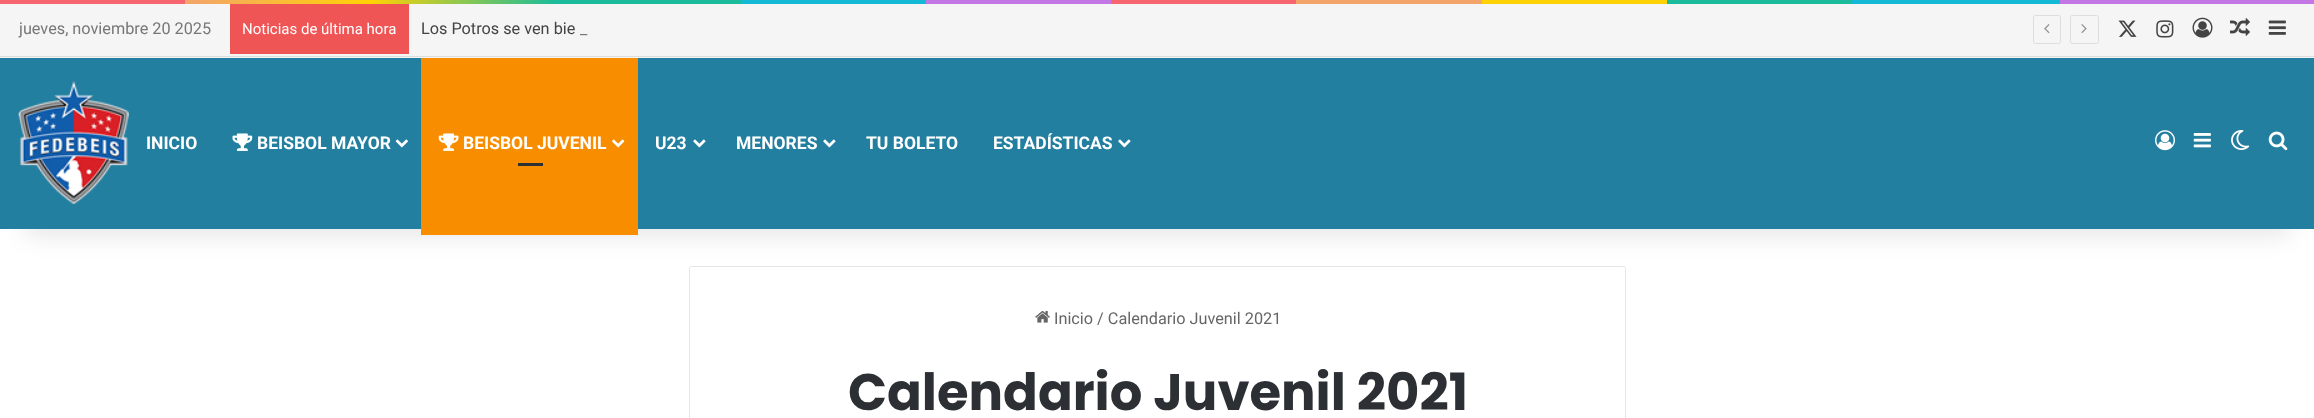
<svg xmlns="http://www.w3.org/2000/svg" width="2314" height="418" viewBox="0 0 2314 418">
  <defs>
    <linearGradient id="g1" gradientUnits="userSpaceOnUse" x1="0" y1="1.9" x2="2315" y2="1.9"><stop offset="0" stop-color="rgb(247,101,112)"/><stop offset="0.08" stop-color="rgb(247,101,112)"/><stop offset="0.08" stop-color="rgb(243,164,107)"/><stop offset="0.16" stop-color="rgb(255,210,5)"/><stop offset="0.24" stop-color="rgb(27,188,155)"/><stop offset="0.32" stop-color="rgb(27,188,155)"/><stop offset="0.32" stop-color="rgb(20,185,213)"/><stop offset="0.4" stop-color="rgb(20,185,213)"/><stop offset="0.4" stop-color="rgb(195,119,228)"/><stop offset="0.48" stop-color="rgb(195,119,228)"/><stop offset="0.48" stop-color="rgb(247,101,112)"/><stop offset="0.56" stop-color="rgb(247,101,112)"/><stop offset="0.56" stop-color="rgb(243,164,107)"/><stop offset="0.64" stop-color="rgb(243,164,107)"/><stop offset="0.64" stop-color="rgb(255,210,5)"/><stop offset="0.72" stop-color="rgb(255,210,5)"/><stop offset="0.72" stop-color="rgb(27,188,155)"/><stop offset="0.8" stop-color="rgb(27,188,155)"/><stop offset="0.8" stop-color="rgb(20,185,213)"/><stop offset="0.89" stop-color="rgb(20,185,213)"/><stop offset="0.89" stop-color="rgb(195,119,228)"/><stop offset="1" stop-color="rgb(195,119,228)"/></linearGradient>
  </defs>
  <rect width="100%" height="100%" fill="rgb(255,255,255)"/>
  <rect x="0" y="0" width="2314" height="4" fill="url(#g1)"/>
  <rect x="689.5" y="266.5" width="936" height="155" rx="2" fill="none" stroke="rgb(230,230,230)"/>
  <rect x="25" y="60" width="2265" height="175" fill="rgba(0,0,0,0.1)" filter="blur(12.5px)"/>
  <rect x="0" y="4" width="2314" height="54" fill="rgb(245,245,245)"/>
  <rect x="0" y="56" width="2314" height="1" fill="rgb(221,221,221)"/>
  <text x="19" y="34" font-family="Roboto" font-size="16.25" fill="rgb(119,119,119)">jueves, noviembre 20 2025</text>
  <rect x="230" y="4" width="179" height="50" fill="rgb(240,85,85)"/>
  <text x="242" y="34" font-family="Roboto" font-size="15" fill="rgb(255,255,255)">Noticias de última hora</text>
  <text x="421" y="34" font-family="Roboto" font-size="16.25" fill="rgb(68,68,68)">Los Potros se ven bie</text>
  <text x="580" y="34" font-family="Roboto" font-size="16.25" fill="rgb(119,119,119)">_</text>
  <rect x="2033.5" y="15.5" width="27" height="28" rx="2" fill="none" stroke="rgb(221,221,221)"/>
  <image x="2044" y="24" width="6" height="10" href="pic1.png"/>
  <rect x="2070.5" y="15.5" width="28" height="28" rx="2" fill="none" stroke="rgb(221,221,221)"/>
  <image x="2081" y="24" width="6" height="9" href="pic2.png"/>
  <image x="2118" y="20" width="19" height="17" href="pic3.png"/>
  <image x="2156" y="20" width="18" height="18" href="pic4.png"/>
  <image x="2192" y="17" width="21" height="21" href="pic5.png"/>
  <image x="2230" y="18" width="20" height="18" href="pic6.png"/>
  <image x="2268" y="20" width="18" height="15" href="pic7.png"/>
  <rect x="0" y="58" width="2314" height="171" fill="rgb(35,127,160)"/>
  <image x="18" y="81" width="111" height="123" href="pic8.png"/>
  <text x="146" y="149" font-family="Roboto" font-size="17.5" font-weight="bold" fill="rgb(255,255,255)">INICIO</text>
  <image x="232" y="133" width="21" height="18" href="pic9.png"/>
  <text x="257" y="149" font-family="Roboto" font-size="17.5" font-weight="bold" fill="rgb(255,255,255)">BEISBOL MAYOR</text>
  <image x="395" y="139" width="13" height="9" href="pic10.png"/>
  <rect x="421" y="58" width="217" height="177" fill="rgb(249,141,0)"/>
  <image x="438" y="133" width="21" height="18" href="pic11.png"/>
  <text x="463" y="149" font-family="Roboto" font-size="17.5" font-weight="bold" fill="rgb(255,255,255)">BEISBOL JUVENIL</text>
  <image x="612" y="139" width="13" height="9" href="pic12.png"/>
  <rect x="518" y="163" width="25" height="3" fill="rgb(44,47,52)"/>
  <text x="655" y="149" font-family="Roboto" font-size="17.5" font-weight="bold" fill="rgb(255,255,255)">U23</text>
  <image x="693" y="139" width="13" height="9" href="pic13.png"/>
  <text x="736" y="149" font-family="Roboto" font-size="17.5" font-weight="bold" fill="rgb(255,255,255)">MENORES</text>
  <image x="823" y="139" width="13" height="9" href="pic13.png"/>
  <g font-family="Roboto" font-size="17.5" font-weight="bold" fill="rgb(255,255,255)">
    <text x="866" y="149">TU BOLETO</text>
    <text x="993" y="149">ESTADÍSTICAS</text>
  </g>
  <image x="1118" y="139" width="13" height="9" href="pic13.png"/>
  <image x="2155" y="130" width="20" height="21" href="pic14.png"/>
  <image x="2193" y="133" width="18" height="15" href="pic15.png"/>
  <image x="2231" y="130" width="19" height="20" href="pic16.png"/>
  <image x="2268" y="131" width="20" height="20" href="pic17.png"/>
  <image x="1035" y="311" width="15" height="12" href="pic18.png"/>
  <text x="1054" y="324" font-family="Roboto" font-size="16.25" fill="rgb(102,102,102)">Inicio / Calendario Juvenil 2021</text>
  <text x="848" y="410" font-family="Poppins" font-size="51.25" font-weight="bold" fill="rgb(44,47,52)">Calendario Juvenil 2021</text>
</svg>
